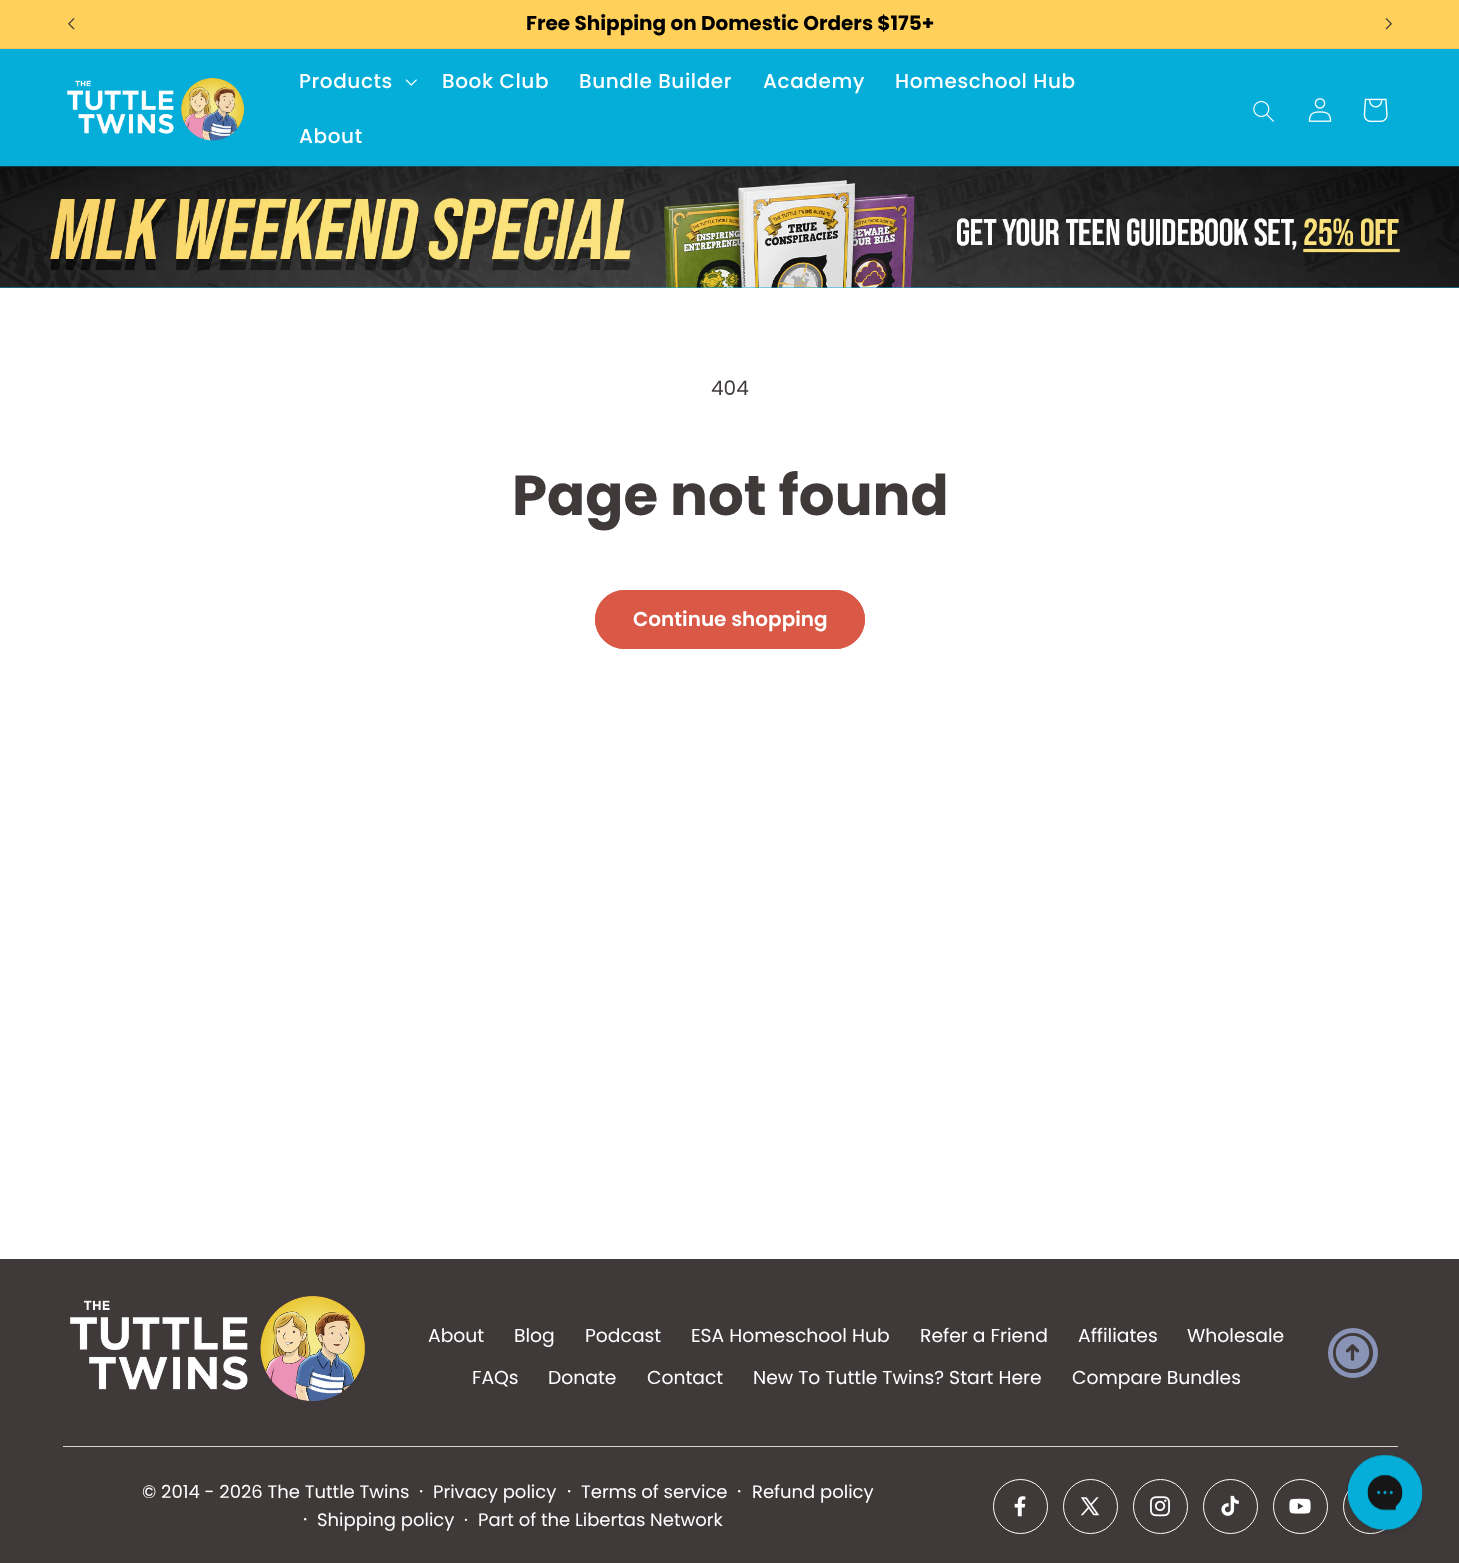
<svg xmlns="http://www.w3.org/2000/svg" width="1459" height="1563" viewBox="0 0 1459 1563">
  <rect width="100%" height="100%" fill="rgb(255,255,255)"/>
  <rect x="0" y="0" width="1459" height="48" fill="rgb(255,208,90)"/>
  <rect x="0" y="48" width="1459" height="1" fill="rgb(240,196,87)"/>
  <image x="68" y="18" width="7" height="12" href="pic1.png"/>
  <text x="526" y="30" font-family="Poppins" font-size="20" font-weight="bold" fill="rgb(0,0,0)">Free Shipping on Domestic Orders $175+</text>
  <image x="1385" y="18" width="7" height="12" href="pic2.png"/>
  <rect x="0" y="49" width="1459" height="239" fill="rgb(4,174,216)"/>
  <image x="0" y="166" width="1459" height="122" href="pic3.png"/>
  <image x="67" y="78" width="178" height="63" href="pic4.png"/>
  <text x="299" y="88" font-family="Poppins" font-size="20" font-weight="500" letter-spacing="0.6" fill="rgb(255,255,255)">Products</text>
  <image x="405" y="79" width="12" height="7" href="pic5.png"/>
  <g font-family="Poppins" font-size="20" font-weight="500" letter-spacing="0.6" fill="rgb(255,255,255)">
    <text x="442" y="88">Book Club</text>
    <text x="579" y="88">Bundle Builder</text>
    <text x="763" y="88">Academy</text>
    <text x="895" y="88">Homeschool Hub</text>
    <text x="299" y="143">About</text>
  </g>
  <image x="1253" y="101" width="21" height="21" href="pic6.png"/>
  <image x="1308" y="98" width="24" height="24" href="pic7.png"/>
  <image x="1363" y="98" width="25" height="24" href="pic8.png"/>
  <text x="711" y="395" font-family="Poppins" font-size="20" fill="rgb(63,57,57)">404</text>
  <text x="512" y="515" font-family="Poppins" font-size="56.25" font-weight="bold" fill="rgb(63,57,57)">Page not found</text>
  <rect x="595" y="590" width="270" height="59" rx="29.5" fill="rgb(218,88,70)"/>
  <rect x="595.5" y="590.5" width="269" height="58" rx="29" fill="none" stroke="rgb(218,88,70)"/>
  <text x="633" y="626" font-family="Poppins" font-size="20" font-weight="600" fill="rgb(255,255,255)">Continue shopping</text>
  <rect x="0" y="1259" width="1459" height="304" fill="rgb(63,57,57)"/>
  <image x="70" y="1295" width="295" height="107" href="pic9.png"/>
  <g font-family="Poppins" font-size="18.75" fill="rgb(255,255,255)">
    <text x="428" y="1342">About</text>
    <text x="514" y="1342">Blog</text>
    <text x="585" y="1342">Podcast</text>
    <text x="691" y="1342">ESA Homeschool Hub</text>
    <text x="920" y="1342">Refer a Friend</text>
    <text x="1078" y="1342">Affiliates</text>
    <text x="1187" y="1342">Wholesale</text>
    <text x="472" y="1384">FAQs</text>
    <text x="548" y="1384">Donate</text>
    <text x="647" y="1384">Contact</text>
    <text x="753" y="1384">New To Tuttle Twins? Start Here</text>
    <text x="1072" y="1384">Compare Bundles</text>
  </g>
  <circle cx="1353" cy="1353" r="22.5" fill="none" stroke="rgb(137,147,182)" stroke-width="5"/>
  <image x="1335" y="1335" width="35" height="35" href="pic10.png"/>
  <rect x="63" y="1446" width="1335" height="1" fill="rgb(216,213,210)"/>
  <text x="142" y="1498" font-family="Poppins" font-size="18" fill="rgb(255,255,255)">© 2014 - 2026 The Tuttle Twins</text>
  <text x="419" y="1498" font-family="Poppins" font-size="20" fill="rgb(255,255,255)">·</text>
  <text x="433" y="1498" font-family="Poppins" font-size="18" fill="rgb(255,255,255)">Privacy policy</text>
  <text x="567" y="1498" font-family="Poppins" font-size="20" fill="rgb(255,255,255)">·</text>
  <text x="581" y="1498" font-family="Poppins" font-size="18" fill="rgb(255,255,255)">Terms of service</text>
  <text x="737" y="1498" font-family="Poppins" font-size="20" fill="rgb(255,255,255)">·</text>
  <text x="752" y="1498" font-family="Poppins" font-size="18" fill="rgb(255,255,255)">Refund policy</text>
  <text x="303" y="1526" font-family="Poppins" font-size="20" fill="rgb(255,255,255)">·</text>
  <g font-family="Poppins" font-size="18" fill="rgb(255,255,255)">
    <text x="317" y="1526">Shipping policy</text>
    <text x="464" y="1526">·</text>
    <text x="478" y="1526">Part of the Libertas Network</text>
  </g>
  <circle cx="1020.5" cy="1506.5" r="27" fill="none" stroke="rgb(255,255,255)"/>
  <image x="1014" y="1496" width="12" height="21" href="pic11.png"/>
  <circle cx="1090.5" cy="1506.5" r="27" fill="none" stroke="rgb(255,255,255)"/>
  <image x="1080" y="1497" width="20" height="19" href="pic12.png"/>
  <circle cx="1160.5" cy="1506.5" r="27" fill="none" stroke="rgb(255,255,255)"/>
  <image x="1150" y="1496" width="20" height="21" href="pic13.png"/>
  <circle cx="1230.5" cy="1506.5" r="27" fill="none" stroke="rgb(255,255,255)"/>
  <image x="1221" y="1495" width="18" height="21" href="pic14.png"/>
  <circle cx="1300.5" cy="1506.5" r="27" fill="none" stroke="rgb(255,255,255)"/>
  <image x="1289" y="1498" width="22" height="16" href="pic15.png"/>
  <circle cx="1370.5" cy="1506.5" r="27" fill="none" stroke="rgb(255,255,255)"/>
  <image x="1345" y="1454" width="78" height="80" href="pic16.png"/>
</svg>
